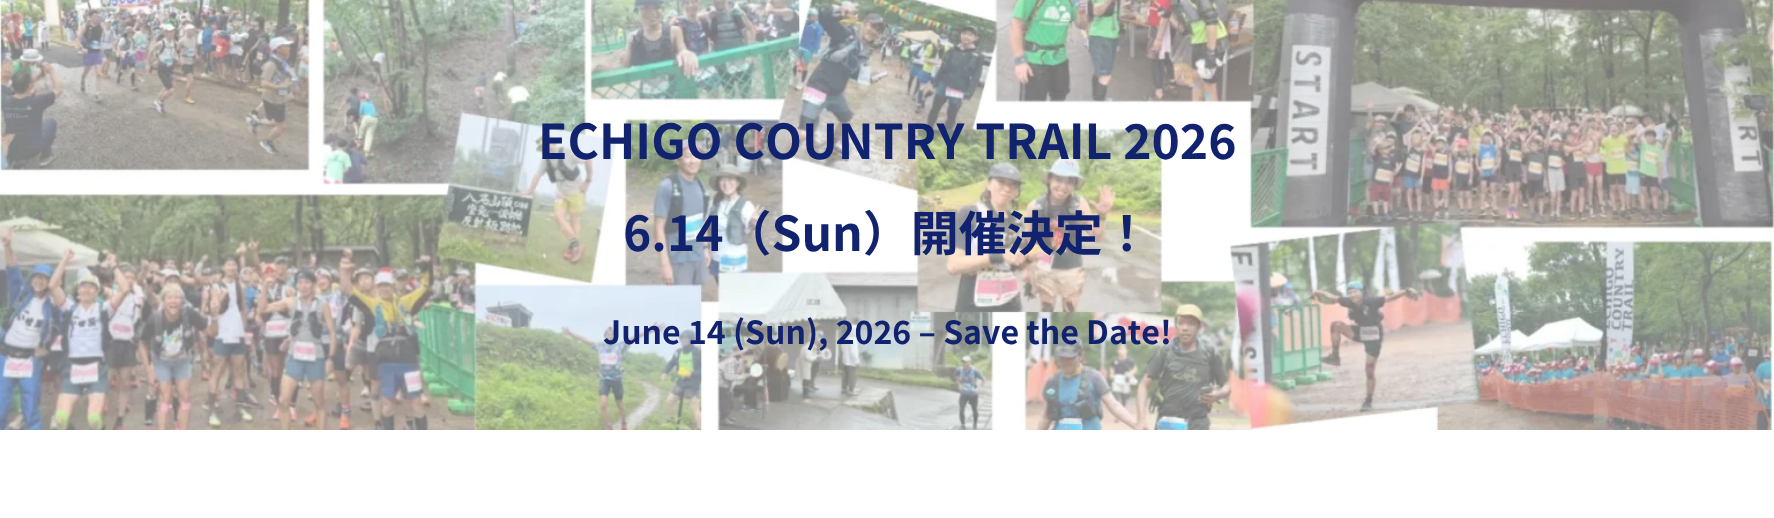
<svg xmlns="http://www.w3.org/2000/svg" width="1774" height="518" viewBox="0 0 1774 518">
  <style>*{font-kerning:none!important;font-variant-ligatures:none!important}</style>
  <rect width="100%" height="100%" fill="rgb(255,255,255)"/>
  <image x="0" y="0" width="1774" height="430" href="pic1.png"/>
  <g font-family="Noto Sans JP" font-size="48" font-weight="bold" fill="rgb(17,34,110)">
    <text x="538" y="159">ECHIGO COUNTRY TRAIL 2026</text>
    <text x="623" y="251">6.14（Sun）開催決定！</text>
  </g>
  <text x="603" y="344" font-family="Noto Sans JP" font-size="32" font-weight="bold" fill="rgb(17,34,110)">June 14 (Sun), 2026 – Save the Date!</text>
</svg>
